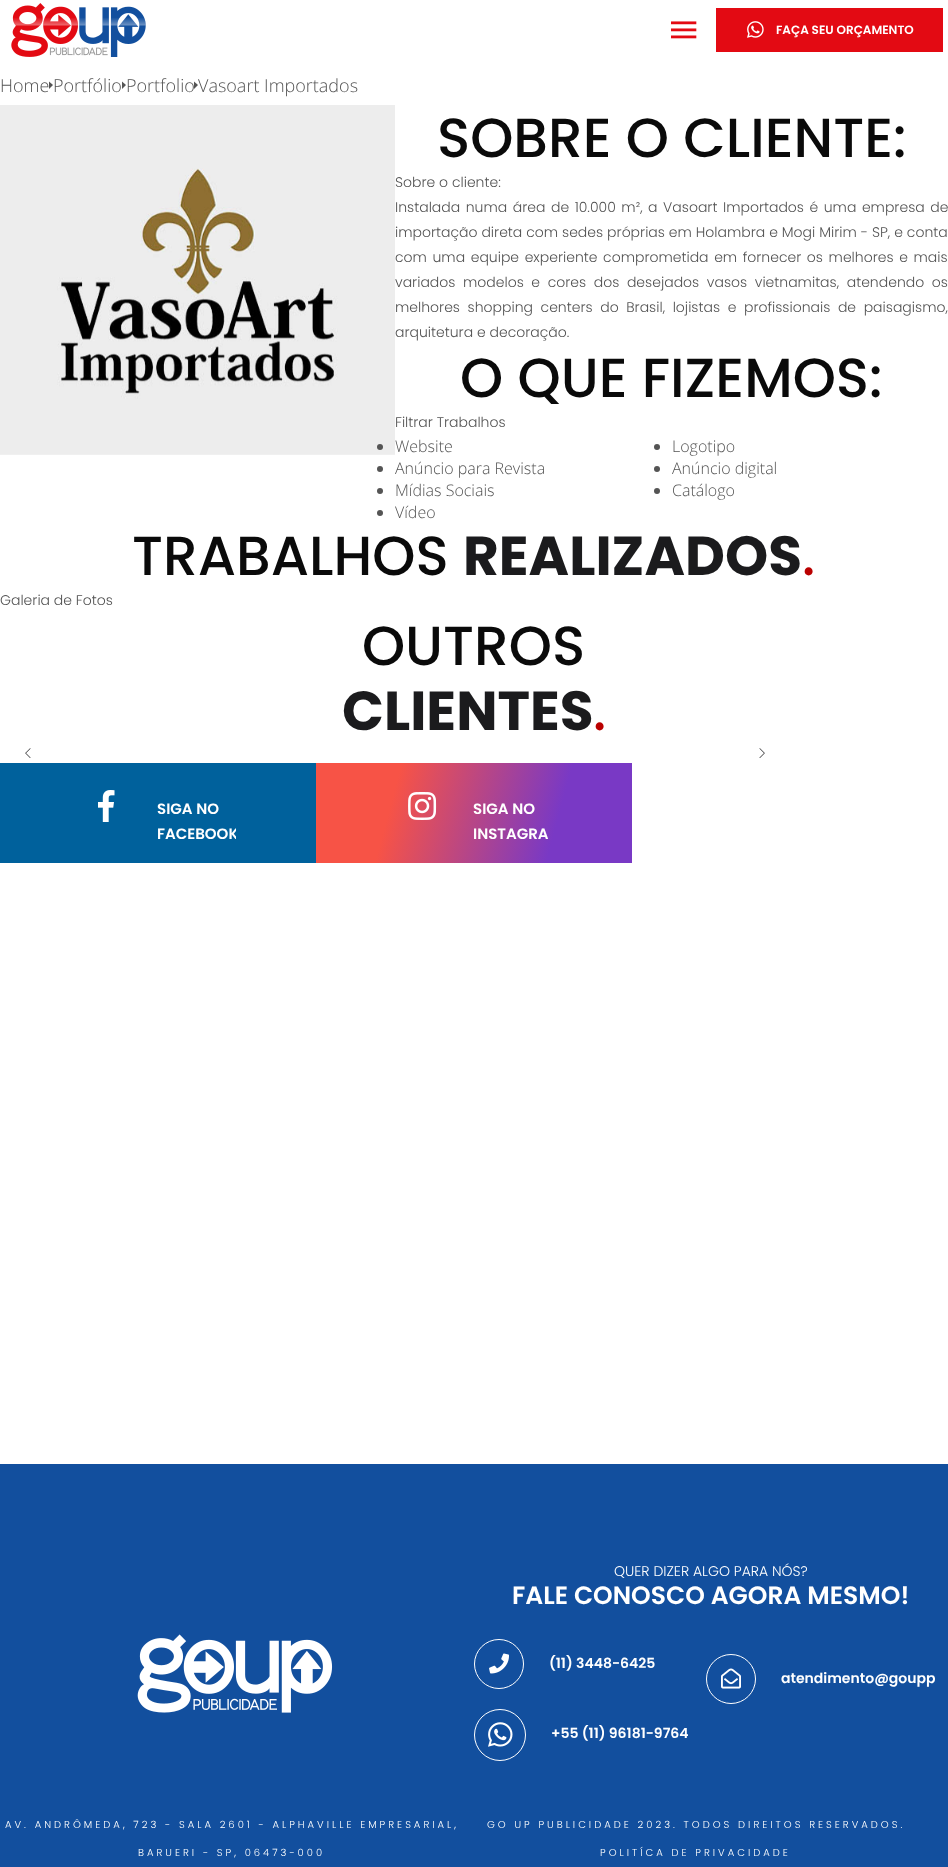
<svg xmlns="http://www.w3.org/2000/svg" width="948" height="1867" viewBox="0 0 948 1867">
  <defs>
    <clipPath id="clip1"><rect x="80" y="780" width="156" height="66"/></clipPath>
    <linearGradient id="g1" gradientUnits="userSpaceOnUse" x1="634" y1="856" x2="314" y2="770"><stop offset="0.25" stop-color="rgb(121,57,197)"/><stop offset="0.75" stop-color="rgb(247,83,70)"/></linearGradient>
  </defs>
  <rect width="100%" height="100%" fill="rgb(255,255,255)"/>
  <image x="11" y="3" width="135" height="54" href="pic1.png"/>
  <image x="671" y="21" width="26" height="18" href="pic2.png"/>
  <rect x="716" y="8" width="227" height="44" fill="rgb(227,10,19)"/>
  <image x="747" y="21" width="17" height="17" href="pic3.png"/>
  <text x="776" y="34" font-family="Poppins" font-size="12" font-weight="600" fill="rgb(255,255,255)">FAÇA SEU ORÇAMENTO</text>
  <text x="0" y="92" font-family="Open Sans" font-size="18" font-weight="300" fill="rgb(84,84,84)">Home</text>
  <path d="M49 89V81.5L53 85Z" fill="rgb(84,84,84)"/>
  <text x="53" y="92" font-family="Open Sans" font-size="18" font-weight="300" fill="rgb(84,84,84)">Portfólio</text>
  <path d="M122 89V81.5L126 85Z" fill="rgb(84,84,84)"/>
  <text x="126" y="92" font-family="Open Sans" font-size="18" font-weight="300" fill="rgb(84,84,84)">Portfolio</text>
  <path d="M194 89V81.5L198 85Z" fill="rgb(84,84,84)"/>
  <text x="198" y="92" font-family="Open Sans" font-size="18" font-weight="300" fill="rgb(84,84,84)">Vasoart Importados</text>
  <image x="0" y="105" width="395" height="350" href="pic4.png"/>
  <text x="437" y="157" font-family="Poppins" font-size="55" font-weight="500" fill="rgb(10,10,10)">SOBRE O CLIENTE:</text>
  <g font-family="Poppins" font-size="14" font-weight="300" fill="rgb(84,84,84)">
    <text>
      <tspan x="395" y="187">Sobre o cliente:</tspan>
      <tspan x="395" y="212" word-spacing="1.7">Instalada numa área de 10.000 m², a Vasoart Importados é uma empresa de</tspan>
      <tspan x="395" y="237" word-spacing="0.1">importação direta com sedes próprias em Holambra e Mogi Mirim - SP, e conta</tspan>
      <tspan x="395" y="262" word-spacing="1.75">com uma equipe experiente comprometida em fornecer os melhores e mais</tspan>
      <tspan x="395" y="287" word-spacing="3.75">variados modelos e cores dos desejados vasos vietnamitas, atendendo os</tspan>
      <tspan x="395" y="312" word-spacing="3.75">melhores shopping centers do Brasil, lojistas e profissionais de paisagismo,</tspan>
      <tspan x="395" y="337">arquitetura e decoração.</tspan>
    </text>
  </g>
  <text x="460" y="397" font-family="Poppins" font-size="55" font-weight="500" fill="rgb(10,10,10)">O QUE FIZEMOS:</text>
  <text x="395" y="427" font-family="Poppins" font-size="14" font-weight="300" fill="rgb(84,84,84)">Filtrar Trabalhos</text>
  <circle cx="380" cy="447" r="3" fill="rgb(84,84,84)"/>
  <text x="395" y="452" font-family="Open Sans" font-size="16" font-weight="300" fill="rgb(84,84,84)">Website</text>
  <circle cx="657" cy="447" r="3" fill="rgb(84,84,84)"/>
  <text x="672" y="452" font-family="Open Sans" font-size="16" font-weight="300" fill="rgb(84,84,84)">Logotipo</text>
  <circle cx="380" cy="469" r="3" fill="rgb(84,84,84)"/>
  <text x="395" y="474" font-family="Open Sans" font-size="16" font-weight="300" fill="rgb(84,84,84)">Anúncio para Revista</text>
  <circle cx="657" cy="469" r="3" fill="rgb(84,84,84)"/>
  <text x="672" y="474" font-family="Open Sans" font-size="16" font-weight="300" fill="rgb(84,84,84)">Anúncio digital</text>
  <circle cx="380" cy="491" r="3" fill="rgb(84,84,84)"/>
  <text x="395" y="496" font-family="Open Sans" font-size="16" font-weight="300" fill="rgb(84,84,84)">Mídias Sociais</text>
  <circle cx="657" cy="491" r="3" fill="rgb(84,84,84)"/>
  <text x="672" y="496" font-family="Open Sans" font-size="16" font-weight="300" fill="rgb(84,84,84)">Catálogo</text>
  <circle cx="380" cy="513" r="3" fill="rgb(84,84,84)"/>
  <text x="395" y="518" font-family="Open Sans" font-size="16" font-weight="300" fill="rgb(84,84,84)">Vídeo</text>
  <text x="132" y="575" font-family="Poppins" font-size="55" font-weight="500" fill="rgb(10,10,10)">TRABALHOS</text>
  <text x="463" y="575" font-family="Poppins" font-size="55" font-weight="bold" fill="rgb(27,27,29)">REALIZADOS</text>
  <text x="802" y="575" font-family="Poppins" font-size="55" font-weight="500" fill="rgb(186,0,0)">.</text>
  <text x="0" y="605" font-family="Poppins" font-size="14" font-weight="300" fill="rgb(84,84,84)">Galeria de Fotos</text>
  <text x="362" y="665" font-family="Poppins" font-size="55" font-weight="500" fill="rgb(10,10,10)">OUTROS</text>
  <text x="342" y="730" font-family="Poppins" font-size="55" font-weight="bold" fill="rgb(27,27,29)">CLIENTES</text>
  <text x="593" y="730" font-family="Poppins" font-size="55" font-weight="500" fill="rgb(186,0,0)">.</text>
  <image x="25" y="748" width="6" height="10" href="pic5.png"/>
  <image x="759" y="748" width="6" height="10" href="pic6.png"/>
  <rect x="0" y="763" width="316" height="100" fill="rgb(0,97,156)"/>
  <image x="98" y="790" width="17" height="32" href="pic7.png"/>
  <text x="157" y="814" font-family="Poppins" font-size="15" font-weight="600" fill="rgb(255,255,255)">SIGA NO</text>
  <g clip-path="url(#clip1)">
    <text x="157" y="839" font-family="Poppins" font-size="15" font-weight="600" fill="rgb(255,255,255)">FACEBOOK</text>
  </g>
  <rect x="316" y="763" width="316" height="100" fill="url(#g1)"/>
  <image x="408" y="792" width="29" height="28" href="pic8.png"/>
  <g font-family="Poppins" font-size="15" font-weight="600" fill="rgb(255,255,255)">
    <text>
      <tspan x="473" y="814">SIGA NO</tspan>
      <tspan x="473" y="839">INSTAGRA</tspan>
    </text>
  </g>
  <rect x="0" y="1464" width="948" height="403" fill="rgb(18,79,158)"/>
  <image x="137" y="1634" width="196" height="79" href="pic9.png"/>
  <text x="614" y="1576" font-family="Poppins" font-size="14" font-weight="300" fill="rgb(255,255,255)">QUER DIZER ALGO PARA NÓS?</text>
  <text x="512" y="1604" font-family="Poppins" font-size="25" font-weight="600" fill="rgb(255,255,255)">FALE CONOSCO AGORA MESMO!</text>
  <circle cx="499" cy="1664" r="24.5" fill="none" stroke="rgb(255,255,255)"/>
  <image x="489" y="1653" width="20" height="21" href="pic10.png"/>
  <text x="549" y="1668" font-family="Poppins" font-size="14" font-weight="600" fill="rgb(255,255,255)">(11) 3448-6425</text>
  <circle cx="500" cy="1735" r="25.5" fill="none" stroke="rgb(255,255,255)"/>
  <image x="488" y="1722" width="25" height="25" href="pic11.png"/>
  <text x="551" y="1738" font-family="Poppins" font-size="14" font-weight="600" fill="rgb(255,255,255)">+55 (11) 96181-9764</text>
  <circle cx="731" cy="1679" r="24.5" fill="none" stroke="rgb(255,255,255)"/>
  <image x="721" y="1668" width="20" height="21" href="pic12.png"/>
  <text x="781" y="1683" font-family="Poppins" font-size="14" font-weight="600" fill="rgb(255,255,255)">atendimento@goupp</text>
  <g font-family="Poppins" font-size="10" font-weight="300" letter-spacing="3" fill="rgb(255,255,255)">
    <text x="5" y="1828">AV. ANDRÔMEDA, 723 - SALA 2601 - ALPHAVILLE EMPRESARIAL,</text>
    <text x="138" y="1856">BARUERI - SP, 06473-000</text>
    <text x="487" y="1828">GO UP PUBLICIDADE 2023. TODOS DIREITOS RESERVADOS.</text>
    <text x="600" y="1856">POLITÍCA DE PRIVACIDADE</text>
  </g>
</svg>
